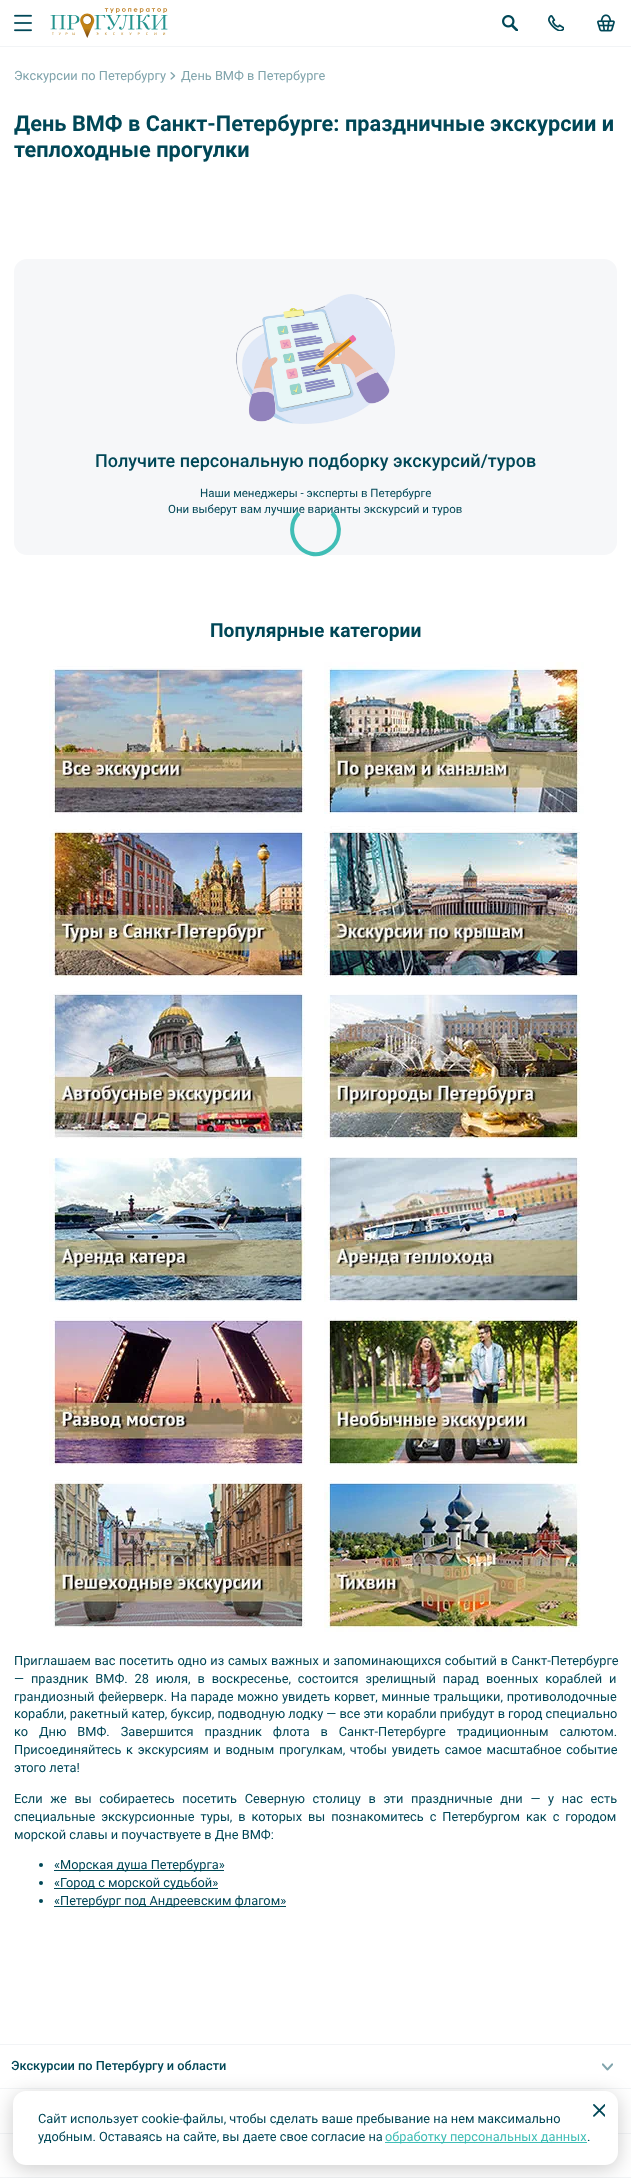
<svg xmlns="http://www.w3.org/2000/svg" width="631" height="2178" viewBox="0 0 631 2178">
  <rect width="100%" height="100%" fill="rgb(255,255,255)"/>
  <rect x="0" y="46" width="631" height="1" fill="rgb(242,244,246)"/>
  <image x="14" y="14" width="18" height="18" href="pic1.png"/>
  <image x="50" y="8" width="118" height="30" href="pic2.png"/>
  <image x="502" y="15" width="16" height="16" href="pic3.png"/>
  <image x="548" y="15" width="16" height="16" href="pic4.png"/>
  <image x="597" y="14" width="18" height="18" href="pic5.png"/>
  <text x="14" y="80" font-family="Roboto" font-size="12.8" fill="rgb(128,164,172)">Экскурсии по Петербургу</text>
  <image x="170" y="72" width="6" height="8" href="pic6.png"/>
  <text x="181" y="80" font-family="Roboto" font-size="12.8" fill="rgb(128,164,172)">День ВМФ в Петербурге</text>
  <g font-family="Roboto" font-size="21.75" font-weight="bold" fill="rgb(0,71,87)">
    <text>
      <tspan x="14" y="131">День ВМФ в Санкт-Петербурге: праздничные экскурсии и</tspan>
      <tspan x="14" y="157">теплоходные прогулки</tspan>
    </text>
  </g>
  <rect x="14" y="259" width="603" height="296" rx="13" fill="rgb(246,247,249)"/>
  <image x="236" y="294" width="159" height="130" href="pic7.png"/>
  <text x="95" y="467" font-family="Roboto" font-size="18" font-weight="500" fill="rgb(0,71,87)">Получите персональную подборку экскурсий/туров</text>
  <g font-family="Roboto" font-size="11.5" fill="rgb(0,71,87)">
    <text x="200" y="497">Наши менеджеры - эксперты в Петербурге</text>
    <text x="168" y="513">Они выберут вам лучшие варианты экскурсий и туров</text>
  </g>
  <path d="M332 513C337.5 518.5 340 527 338.5 534.5C337.5 541 333.5 546.5 328.5 550C305 566 279.5 533 299 513" fill="none" stroke="rgb(64,190,182)" stroke-width="4"/>
  <text x="210" y="637" font-family="Roboto" font-size="19.25" font-weight="bold" fill="rgb(0,71,87)">Популярные категории</text>
  <image x="49" y="666" width="256" height="152" href="pic8.png"/>
  <image x="324" y="662" width="260" height="152" href="pic9.png"/>
  <image x="49" y="829" width="256" height="149" href="pic10.png"/>
  <image x="324" y="826" width="256" height="151" href="pic11.png"/>
  <image x="49" y="991" width="256" height="148" href="pic12.png"/>
  <image x="324" y="994" width="257" height="146" href="pic13.png"/>
  <image x="49" y="1156" width="257" height="146" href="pic14.png"/>
  <image x="324" y="1157" width="256" height="145" href="pic15.png"/>
  <image x="49" y="1317" width="256" height="149" href="pic16.png"/>
  <image x="324" y="1317" width="257" height="149" href="pic17.png"/>
  <image x="49" y="1480" width="256" height="148" href="pic18.png"/>
  <image x="324" y="1480" width="257" height="152" href="pic19.png"/>
  <g font-family="Roboto" font-size="12.8" fill="rgb(0,71,87)">
    <text>
      <tspan x="14" y="1665" word-spacing="0.5">Приглашаем вас посетить одно из самых важных и запоминающихся событий в Санкт-Петербурге</tspan>
      <tspan x="14" y="1683" word-spacing="3.75">— праздник ВМФ. 28 июля, в воскресенье, состоится зрелищный парад военных кораблей и</tspan>
      <tspan x="14" y="1701" word-spacing="0.5">грандиозный фейерверк. На параде можно увидеть корвет, минные тральщики, противолодочные</tspan>
      <tspan x="14" y="1718">корабли, ракетный катер, буксир, подводную лодку — все эти корабли прибудут в город специально</tspan>
      <tspan x="14" y="1736" word-spacing="7.75">ко Дню ВМФ. Завершится праздник флота в Санкт-Петербурге традиционным салютом.</tspan>
      <tspan x="14" y="1754" word-spacing="1.5">Присоединяйтесь к экскурсиям и водным прогулкам, чтобы увидеть самое масштабное событие</tspan>
      <tspan x="14" y="1772">этого лета!</tspan>
    </text>
    <text>
      <tspan x="14" y="1803" word-spacing="4.5">Если же вы собираетесь посетить Северную столицу в эти праздничные дни — у нас есть</tspan>
      <tspan x="14" y="1821" word-spacing="2.75">специальные экскурсионные туры, в которых вы познакомитесь с Петербургом как с городом</tspan>
      <tspan x="14" y="1839">морской славы и поучаствуете в Дне ВМФ:</tspan>
    </text>
  </g>
  <circle cx="41" cy="1865" r="2" fill="rgb(0,71,87)"/>
  <rect x="54" y="1870" width="170" height="1" fill="rgb(0,71,87)"/>
  <text x="54" y="1869" font-family="Roboto" font-size="12.8" fill="rgb(0,71,87)">«Морская душа Петербурга»</text>
  <circle cx="41" cy="1883" r="2" fill="rgb(0,71,87)"/>
  <rect x="54" y="1888" width="164" height="1" fill="rgb(0,71,87)"/>
  <text x="54" y="1887" font-family="Roboto" font-size="12.8" fill="rgb(0,71,87)">«Город с морской судьбой»</text>
  <circle cx="41" cy="1901" r="2" fill="rgb(0,71,87)"/>
  <rect x="54" y="1906" width="232" height="1" fill="rgb(0,71,87)"/>
  <text x="54" y="1905" font-family="Roboto" font-size="12.8" fill="rgb(0,71,87)">«Петербург под Андреевским флагом»</text>
  <rect x="0" y="2044" width="631" height="1" fill="rgb(242,244,246)"/>
  <text x="11" y="2070" font-family="Roboto" font-size="12.75" font-weight="500" fill="rgb(0,71,87)">Экскурсии по Петербургу и области</text>
  <image x="602" y="2063" width="11" height="8" href="pic20.png"/>
  <rect x="0" y="2088" width="631" height="1" fill="rgb(242,244,246)"/>
  <rect x="0" y="2133" width="631" height="1" fill="rgb(242,244,246)"/>
  <rect x="0" y="2177" width="631" height="1" fill="rgb(242,244,246)"/>
  <rect x="13" y="2095" width="605" height="74" rx="13" fill="rgba(0,0,0,0.2)" filter="blur(10px)"/>
  <rect x="13" y="2091" width="605" height="74" rx="13" fill="rgb(255,255,255)"/>
  <image x="593" y="2104" width="12" height="13" href="pic21.png"/>
  <g font-family="Roboto" font-size="12.8" fill="rgb(0,71,87)">
    <text>
      <tspan x="38" y="2123">Сайт использует cookie-файлы, чтобы сделать ваше пребывание на нем максимально</tspan>
      <tspan x="38" y="2141">удобным. Оставаясь на сайте, вы даете свое согласие на</tspan>
    </text>
  </g>
  <rect x="385" y="2142" width="202" height="1" fill="rgb(64,190,182)"/>
  <text x="385" y="2141" font-family="Roboto" font-size="12.8" fill="rgb(64,190,182)">обработку персональных данных</text>
  <text x="587" y="2141" font-family="Roboto" font-size="12.8" fill="rgb(0,71,87)">.</text>
</svg>
